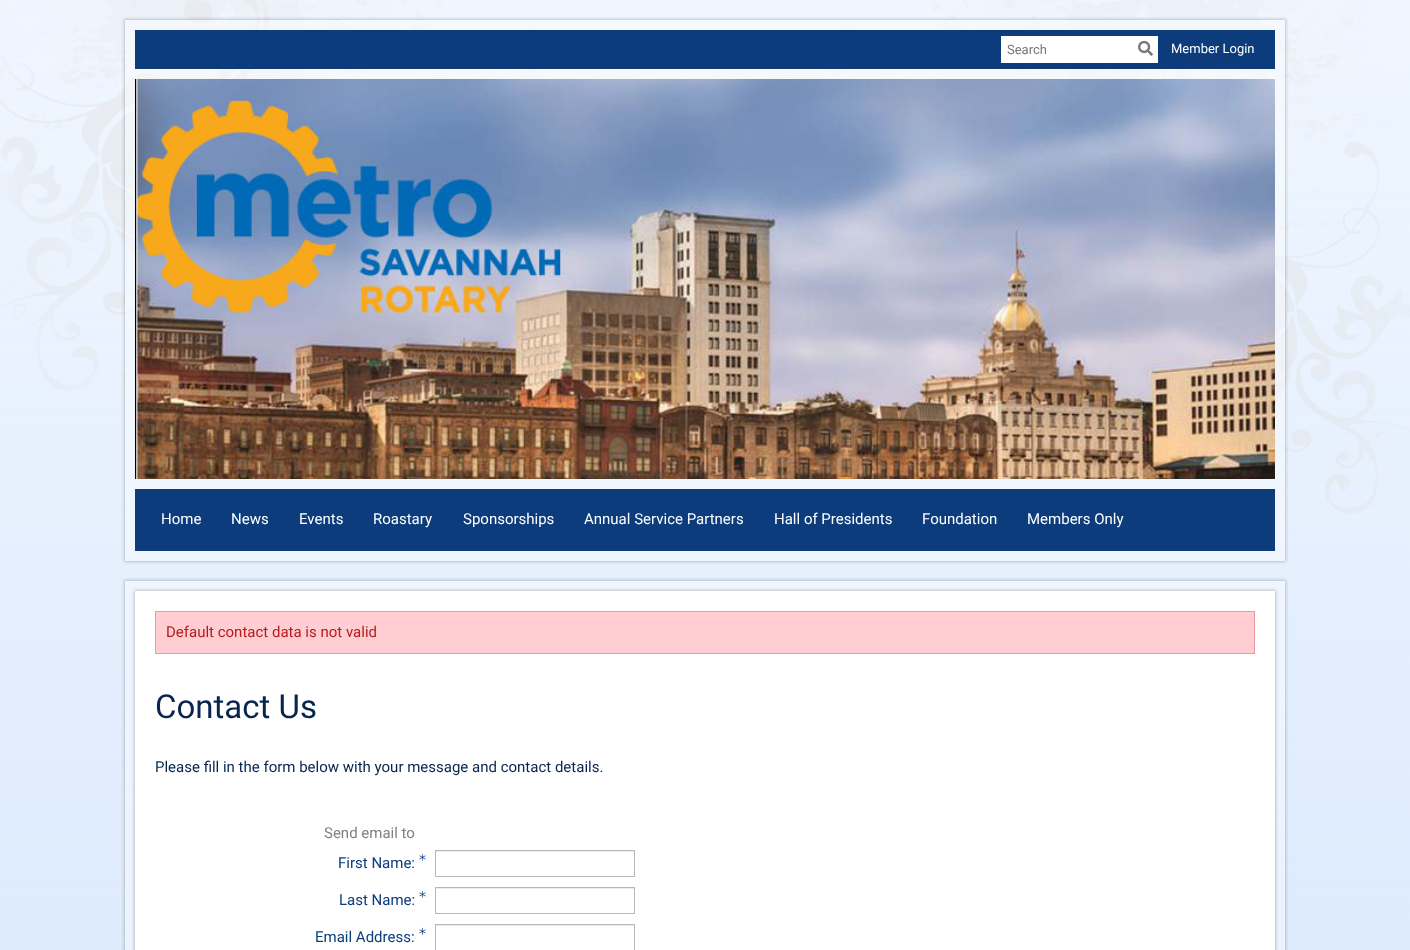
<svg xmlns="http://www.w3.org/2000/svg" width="1410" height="950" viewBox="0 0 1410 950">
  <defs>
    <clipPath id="clip1"><path d="M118 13H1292V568H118ZM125 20H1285V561H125Z" clip-rule="evenodd"/></clipPath>
    <clipPath id="clip2"><path d="M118 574H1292V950H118ZM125 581H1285V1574H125Z" clip-rule="evenodd"/></clipPath>
  </defs>
  <rect width="100%" height="100%" fill="rgb(255,255,255)"/>
  <image x="0" y="0" width="1410" height="950" href="pic1.png"/>
  <g clip-path="url(#clip1)">
    <rect x="124" y="19" width="1162" height="543" fill="rgba(0,0,0,0.2)" filter="blur(1.5px)"/>
  </g>
  <rect x="125" y="20" width="1160" height="541" fill="rgba(255,255,255,0.4)"/>
  <rect x="135" y="30" width="1140" height="39" fill="rgb(12,60,124)"/>
  <rect x="1001" y="36" width="157" height="27" fill="rgb(255,255,255)"/>
  <text x="1007" y="54" font-family="Roboto" font-size="13" fill="rgb(119,119,119)">Search</text>
  <image x="1138" y="40" width="15" height="16" href="pic2.png"/>
  <text x="1171" y="53" font-family="Roboto" font-size="13" fill="rgb(255,255,255)">Member Login</text>
  <image x="135" y="79" width="1140" height="400" href="pic3.png"/>
  <rect x="135" y="489" width="1140" height="62" fill="rgb(12,60,124)"/>
  <g font-family="Roboto" font-size="15" fill="rgb(255,255,255)">
    <text x="161" y="524">Home</text>
    <text x="231" y="524">News</text>
    <text x="299" y="524">Events</text>
    <text x="373" y="524">Roastary</text>
    <text x="463" y="524">Sponsorships</text>
    <text x="584" y="524">Annual Service Partners</text>
    <text x="774" y="524">Hall of Presidents</text>
    <text x="922" y="524">Foundation</text>
    <text x="1027" y="524">Members Only</text>
  </g>
  <g clip-path="url(#clip2)">
    <rect x="124" y="580" width="1162" height="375" fill="rgba(0,0,0,0.2)" filter="blur(1.5px)"/>
  </g>
  <rect x="125" y="581" width="1160" height="369" fill="rgba(255,255,255,0.4)"/>
  <rect x="134" y="590" width="1142" height="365" fill="rgba(0,0,0,0.2)" filter="blur(1.5px)"/>
  <rect x="135" y="591" width="1140" height="359" fill="rgb(255,255,255)"/>
  <rect x="155.5" y="611.5" width="1099" height="42" fill="rgb(255,205,210)" stroke="rgb(239,154,154)"/>
  <text x="166" y="637" font-family="Roboto" font-size="15" fill="rgb(183,28,28)">Default contact data is not valid</text>
  <text x="155" y="718" font-family="Roboto" font-size="33" fill="rgb(8,37,78)">Contact Us</text>
  <text x="155" y="772" font-family="Roboto" font-size="15" fill="rgb(8,37,78)">Please fill in the form below with your message and contact details.</text>
  <text x="324" y="838" font-family="Roboto" font-size="15" fill="rgb(128,128,128)">Send email to</text>
  <text x="338" y="868" font-family="Roboto" font-size="15" fill="rgb(12,60,124)">First Name:</text>
  <image x="419" y="853" width="7" height="8" href="pic4.png"/>
  <rect x="436" y="851" width="198" height="1" fill="rgb(236,236,236)"/>
  <rect x="435.5" y="850.5" width="199" height="26" fill="none" stroke="rgb(183,183,183)"/>
  <text x="339" y="905" font-family="Roboto" font-size="15" fill="rgb(12,60,124)">Last Name:</text>
  <image x="419" y="890" width="7" height="8" href="pic4.png"/>
  <rect x="436" y="888" width="198" height="1" fill="rgb(236,236,236)"/>
  <rect x="435.5" y="887.5" width="199" height="26" fill="none" stroke="rgb(183,183,183)"/>
  <text x="315" y="942" font-family="Roboto" font-size="15" fill="rgb(12,60,124)">Email Address:</text>
  <image x="419" y="927" width="7" height="8" href="pic4.png"/>
  <rect x="436" y="925" width="198" height="1" fill="rgb(236,236,236)"/>
  <rect x="435.5" y="924.5" width="199" height="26" fill="none" stroke="rgb(183,183,183)"/>
</svg>
